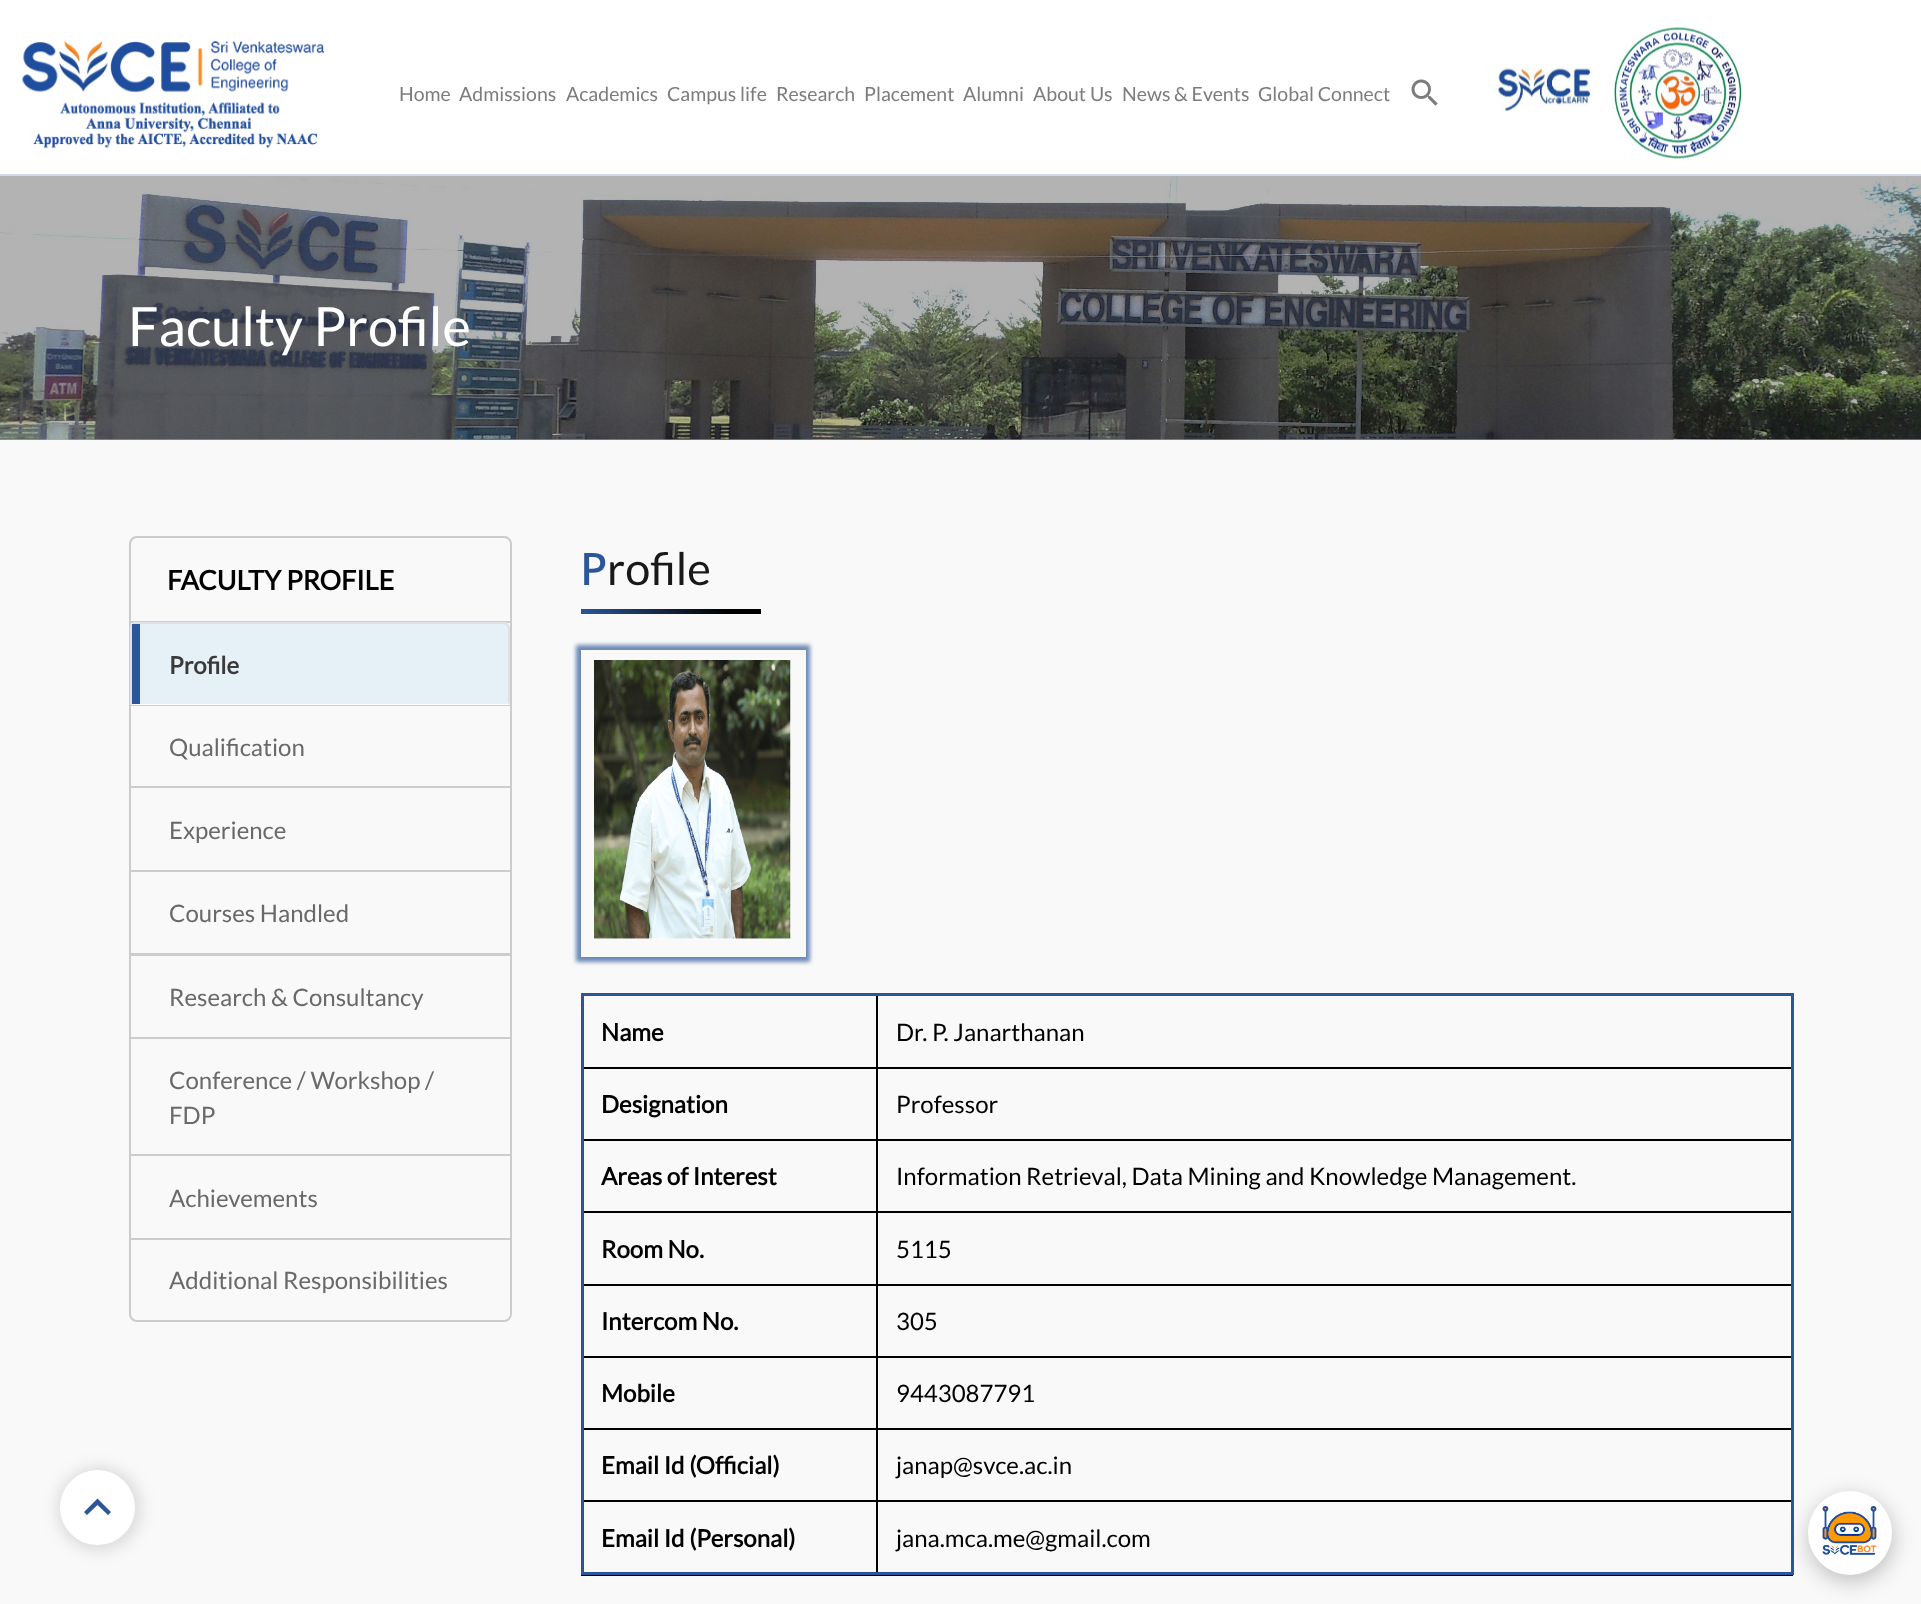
<svg xmlns="http://www.w3.org/2000/svg" width="1921" height="1604" viewBox="0 0 1921 1604">
  <defs>
    <linearGradient id="g1" gradientUnits="userSpaceOnUse" x1="624" y1="657" x2="717" y2="565"><stop offset="0" stop-color="rgb(43,87,154)"/><stop offset="0.8" stop-color="rgb(0,0,0)"/></linearGradient>
    <clipPath id="clip1"><path d="M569 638H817V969H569ZM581 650H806V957H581Z" clip-rule="evenodd"/></clipPath>
  </defs>
  <rect width="100%" height="100%" fill="rgb(249,249,249)"/>
  <rect x="57" y="1467" width="84" height="84" rx="42" fill="rgba(99,99,99,0.2)" filter="blur(7.5px)"/>
  <circle cx="97.5" cy="1507.5" r="37.5" fill="rgb(255,255,255)"/>
  <path d="M97.5 1498.5L111 1512L108 1515L97.5 1505L87 1515L84 1512Z" fill="rgb(43,87,154)"/>
  <rect x="0" y="0" width="1921" height="174" fill="rgb(255,255,255)"/>
  <rect x="0" y="174" width="1921" height="2" fill="rgb(208,218,233)"/>
  <image x="22" y="41" width="302" height="108" href="pic1.png"/>
  <g font-family="Lato" font-size="19.5" fill="rgb(124,124,124)">
    <text x="399" y="101">Home</text>
    <text x="459" y="101">Admissions</text>
    <text x="566" y="101">Academics</text>
    <text x="667" y="101">Campus life</text>
    <text x="776" y="101">Research</text>
    <text x="864" y="101">Placement</text>
    <text x="963" y="101">Alumni</text>
    <text x="1033" y="101">About Us</text>
    <text x="1122" y="101">News &amp; Events</text>
    <text x="1258" y="101">Global Connect</text>
  </g>
  <image x="1411" y="79" width="27" height="27" href="pic2.png"/>
  <image x="1493" y="63" width="100" height="49" href="pic3.png"/>
  <image x="1611" y="25" width="131" height="134" href="pic4.png"/>
  <rect x="0" y="439" width="1921" height="1" fill="rgb(174,174,174)"/>
  <image x="0" y="176" width="1921" height="264" href="pic5.png"/>
  <text x="128" y="346" font-family="Lato" font-size="54" fill="rgb(255,255,255)">Faculty Profile</text>
  <rect x="130" y="537" width="381" height="784" rx="7" fill="none" stroke="rgb(204,204,204)" stroke-width="2"/>
  <text x="167" y="590" font-family="Lato" font-size="27" font-weight="bold" fill="rgb(0,0,0)">FACULTY PROFILE</text>
  <rect x="131" y="621" width="379" height="2" fill="rgb(204,204,204)"/>
  <rect x="131" y="704" width="379" height="2" fill="rgb(204,204,204)"/>
  <path d="M137 623H504C507.5 623 510 625.5 510 629V705H131V629C131 625.5 133.5 623 137 623Z" fill="rgba(54,162,232,0.1)"/>
  <path d="M136 624L133 625L132 624L134 622H506L508 624L507 626C506 625 505 624 504 624Z" fill="rgb(222,226,230)"/>
  <path d="M510 705V628C510 627 509 625 508 624L507 626L508 628V703Z" fill="rgb(222,226,230)"/>
  <path d="M510 705L508 703V704H132L130 705Z" fill="rgb(255,255,255)"/>
  <path d="M130 705V626L132 624L133 625L132 628V704Z" fill="rgb(222,226,230)"/>
  <rect x="132" y="624" width="8" height="80" fill="rgb(43,87,154)"/>
  <text x="169" y="674" font-family="Lato" font-size="24" font-weight="bold" fill="rgb(58,58,58)">Profile</text>
  <text x="169" y="756" font-family="Lato" font-size="24" fill="rgb(105,105,105)">Qualification</text>
  <rect x="131" y="786" width="379" height="2" fill="rgb(204,204,204)"/>
  <text x="169" y="839" font-family="Lato" font-size="24" fill="rgb(105,105,105)">Experience</text>
  <rect x="131" y="870" width="379" height="2" fill="rgb(204,204,204)"/>
  <text x="169" y="922" font-family="Lato" font-size="24" fill="rgb(105,105,105)">Courses Handled</text>
  <rect x="131" y="953" width="379" height="3" fill="rgb(204,204,204)"/>
  <text x="169" y="1006" font-family="Lato" font-size="24" fill="rgb(105,105,105)">Research &amp; Consultancy</text>
  <rect x="131" y="1037" width="379" height="2" fill="rgb(204,204,204)"/>
  <g font-family="Lato" font-size="24" fill="rgb(105,105,105)">
    <text>
      <tspan x="169" y="1089">Conference / Workshop /</tspan>
      <tspan x="169" y="1124">FDP</tspan>
    </text>
  </g>
  <rect x="131" y="1154" width="379" height="2" fill="rgb(204,204,204)"/>
  <text x="169" y="1207" font-family="Lato" font-size="24" fill="rgb(105,105,105)">Achievements</text>
  <rect x="131" y="1238" width="379" height="2" fill="rgb(204,204,204)"/>
  <text x="169" y="1289" font-family="Lato" font-size="24" fill="rgb(105,105,105)">Additional Responsibilities</text>
  <text x="580" y="585" font-family="Noto Sans" font-size="45" font-weight="500" fill="rgb(43,87,154)">P</text>
  <text x="607" y="585" font-family="Lato" font-size="45" fill="rgb(25,25,25)">rofile</text>
  <rect x="581" y="609" width="180" height="5" fill="url(#g1)"/>
  <g clip-path="url(#clip1)">
    <rect x="576" y="645" width="234" height="317" fill="rgba(43,87,154,0.69)" filter="blur(2px)"/>
  </g>
  <image x="594" y="660" width="197" height="279" href="pic6.png"/>
  <rect x="876" y="1067" width="917" height="2" fill="rgb(0,0,0)"/>
  <rect x="876" y="1139" width="917" height="2" fill="rgb(0,0,0)"/>
  <rect x="876" y="1211" width="917" height="2" fill="rgb(0,0,0)"/>
  <rect x="876" y="1284" width="917" height="2" fill="rgb(0,0,0)"/>
  <rect x="876" y="1356" width="917" height="2" fill="rgb(0,0,0)"/>
  <rect x="876" y="1428" width="917" height="2" fill="rgb(0,0,0)"/>
  <rect x="876" y="1500" width="917" height="2" fill="rgb(0,0,0)"/>
  <rect x="876" y="1500" width="2" height="75" fill="rgb(0,0,0)"/>
  <rect x="581" y="1500" width="297" height="2" fill="rgb(0,0,0)"/>
  <rect x="876" y="1428" width="2" height="74" fill="rgb(0,0,0)"/>
  <rect x="581" y="1428" width="297" height="2" fill="rgb(0,0,0)"/>
  <rect x="876" y="1356" width="2" height="74" fill="rgb(0,0,0)"/>
  <rect x="581" y="1356" width="297" height="2" fill="rgb(0,0,0)"/>
  <rect x="876" y="1284" width="2" height="74" fill="rgb(0,0,0)"/>
  <rect x="581" y="1284" width="297" height="2" fill="rgb(0,0,0)"/>
  <rect x="876" y="1211" width="2" height="75" fill="rgb(0,0,0)"/>
  <rect x="581" y="1211" width="297" height="2" fill="rgb(0,0,0)"/>
  <rect x="876" y="1139" width="2" height="73" fill="rgb(0,0,0)"/>
  <rect x="581" y="1139" width="297" height="2" fill="rgb(0,0,0)"/>
  <rect x="876" y="1067" width="2" height="73" fill="rgb(0,0,0)"/>
  <rect x="581" y="1067" width="297" height="2" fill="rgb(0,0,0)"/>
  <rect x="876" y="993" width="2" height="75" fill="rgb(0,0,0)"/>
  <rect x="581" y="993" width="1213" height="3" fill="rgb(43,87,154)"/>
  <rect x="1791" y="993" width="3" height="582" fill="rgb(43,87,154)"/>
  <rect x="581" y="1572" width="1213" height="3" fill="rgb(43,87,154)"/>
  <rect x="581" y="993" width="3" height="582" fill="rgb(43,87,154)"/>
  <text x="601" y="1041" font-family="Lato" font-size="24" font-weight="bold" fill="rgb(0,0,0)">Name</text>
  <text x="896" y="1041" font-family="Lato" font-size="24" fill="rgb(0,0,0)">Dr. P. Janarthanan</text>
  <text x="601" y="1113" font-family="Lato" font-size="24" font-weight="bold" fill="rgb(0,0,0)">Designation</text>
  <text x="896" y="1113" font-family="Lato" font-size="24" fill="rgb(0,0,0)">Professor</text>
  <text x="601" y="1185" font-family="Lato" font-size="24" font-weight="bold" fill="rgb(0,0,0)">Areas of Interest</text>
  <text x="896" y="1185" font-family="Lato" font-size="24" fill="rgb(0,0,0)">Information Retrieval, Data Mining and Knowledge Management.</text>
  <text x="601" y="1258" font-family="Lato" font-size="24" font-weight="bold" fill="rgb(0,0,0)">Room No.</text>
  <text x="896" y="1258" font-family="Lato" font-size="24" fill="rgb(0,0,0)">5115</text>
  <text x="601" y="1330" font-family="Lato" font-size="24" font-weight="bold" fill="rgb(0,0,0)">Intercom No.</text>
  <text x="896" y="1330" font-family="Lato" font-size="24" fill="rgb(0,0,0)">305</text>
  <text x="601" y="1402" font-family="Lato" font-size="24" font-weight="bold" fill="rgb(0,0,0)">Mobile</text>
  <text x="896" y="1402" font-family="Lato" font-size="24" fill="rgb(0,0,0)">9443087791</text>
  <text x="601" y="1474" font-family="Lato" font-size="24" font-weight="bold" fill="rgb(0,0,0)">Email Id (Official)</text>
  <text x="896" y="1474" font-family="Lato" font-size="24" fill="rgb(0,0,0)">janap@svce.ac.in</text>
  <text x="601" y="1547" font-family="Lato" font-size="24" font-weight="bold" fill="rgb(0,0,0)">Email Id (Personal)</text>
  <rect x="581" y="1575" width="1212" height="1" fill="rgb(0,0,0)"/>
  <text x="896" y="1547" font-family="Lato" font-size="24" fill="rgb(0,0,0)">jana.mca.me@gmail.com</text>
  <rect x="1809" y="1497" width="84" height="84" rx="42" fill="rgba(0,0,0,0.24)" filter="blur(11px)"/>
  <circle cx="1850" cy="1533" r="42" fill="rgb(255,255,255)"/>
  <image x="1822" y="1506" width="55" height="49" href="pic7.png"/>
</svg>
